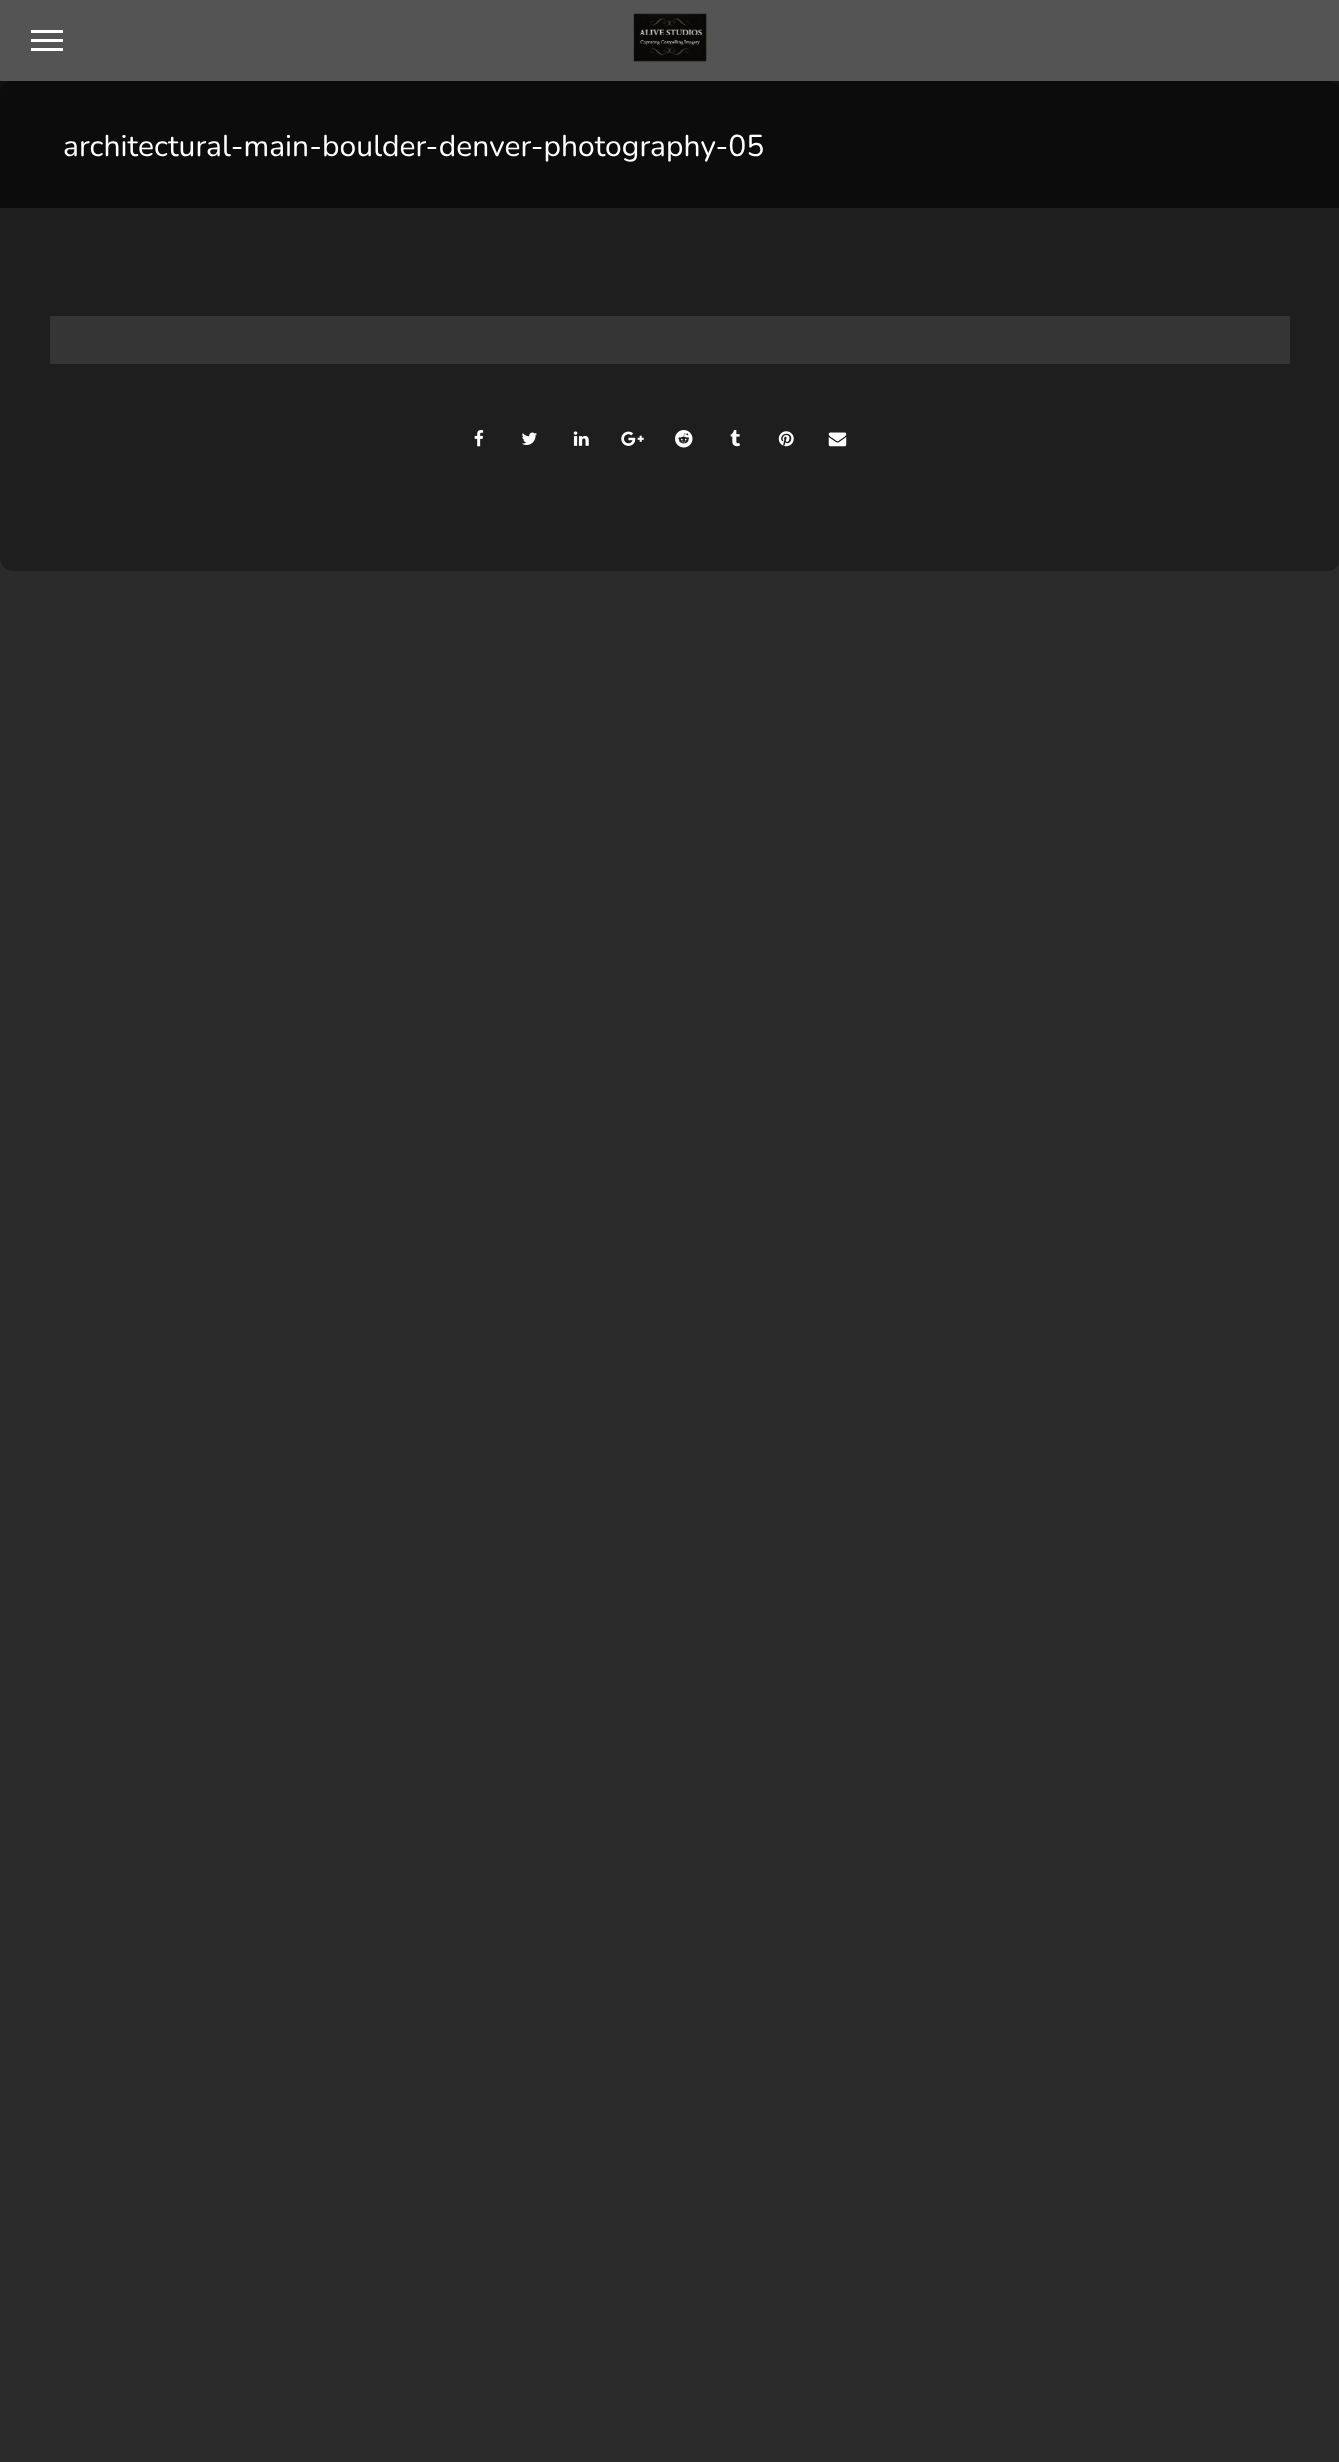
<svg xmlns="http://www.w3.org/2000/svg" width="1339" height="2462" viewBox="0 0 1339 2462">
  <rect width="100%" height="100%" fill="rgb(43,43,43)"/>
  <rect x="0" y="0" width="1339" height="81" fill="rgb(84,84,84)"/>
  <image x="633" y="13" width="74" height="49" href="pic1.png"/>
  <rect x="31" y="39" width="32" height="3" fill="rgb(255,255,255)"/>
  <rect x="31" y="30" width="32" height="3" fill="rgb(255,255,255)"/>
  <rect x="31" y="48" width="32" height="3" fill="rgb(255,255,255)"/>
  <rect x="0" y="81" width="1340" height="490" rx="13" fill="rgb(30,30,30)"/>
  <rect x="0" y="81" width="1339" height="127" fill="rgba(0,0,0,0.6)"/>
  <text x="63" y="156" font-family="Nunito" font-size="30" letter-spacing="0.05" fill="rgb(255,255,255)">architectural-main-boulder-denver-photography-05</text>
  <rect x="50" y="316" width="1240" height="48" fill="rgb(53,53,53)"/>
  <image x="474" y="430" width="10" height="17" href="pic2.png"/>
  <image x="521" y="432" width="16" height="13" href="pic3.png"/>
  <image x="573" y="431" width="16" height="15" href="pic4.png"/>
  <image x="621" y="431" width="23" height="15" href="pic5.png"/>
  <image x="675" y="430" width="18" height="18" href="pic6.png"/>
  <image x="730" y="430" width="10" height="17" href="pic7.png"/>
  <image x="778" y="431" width="16" height="16" href="pic8.png"/>
  <image x="828" y="432" width="19" height="15" href="pic9.png"/>
</svg>
